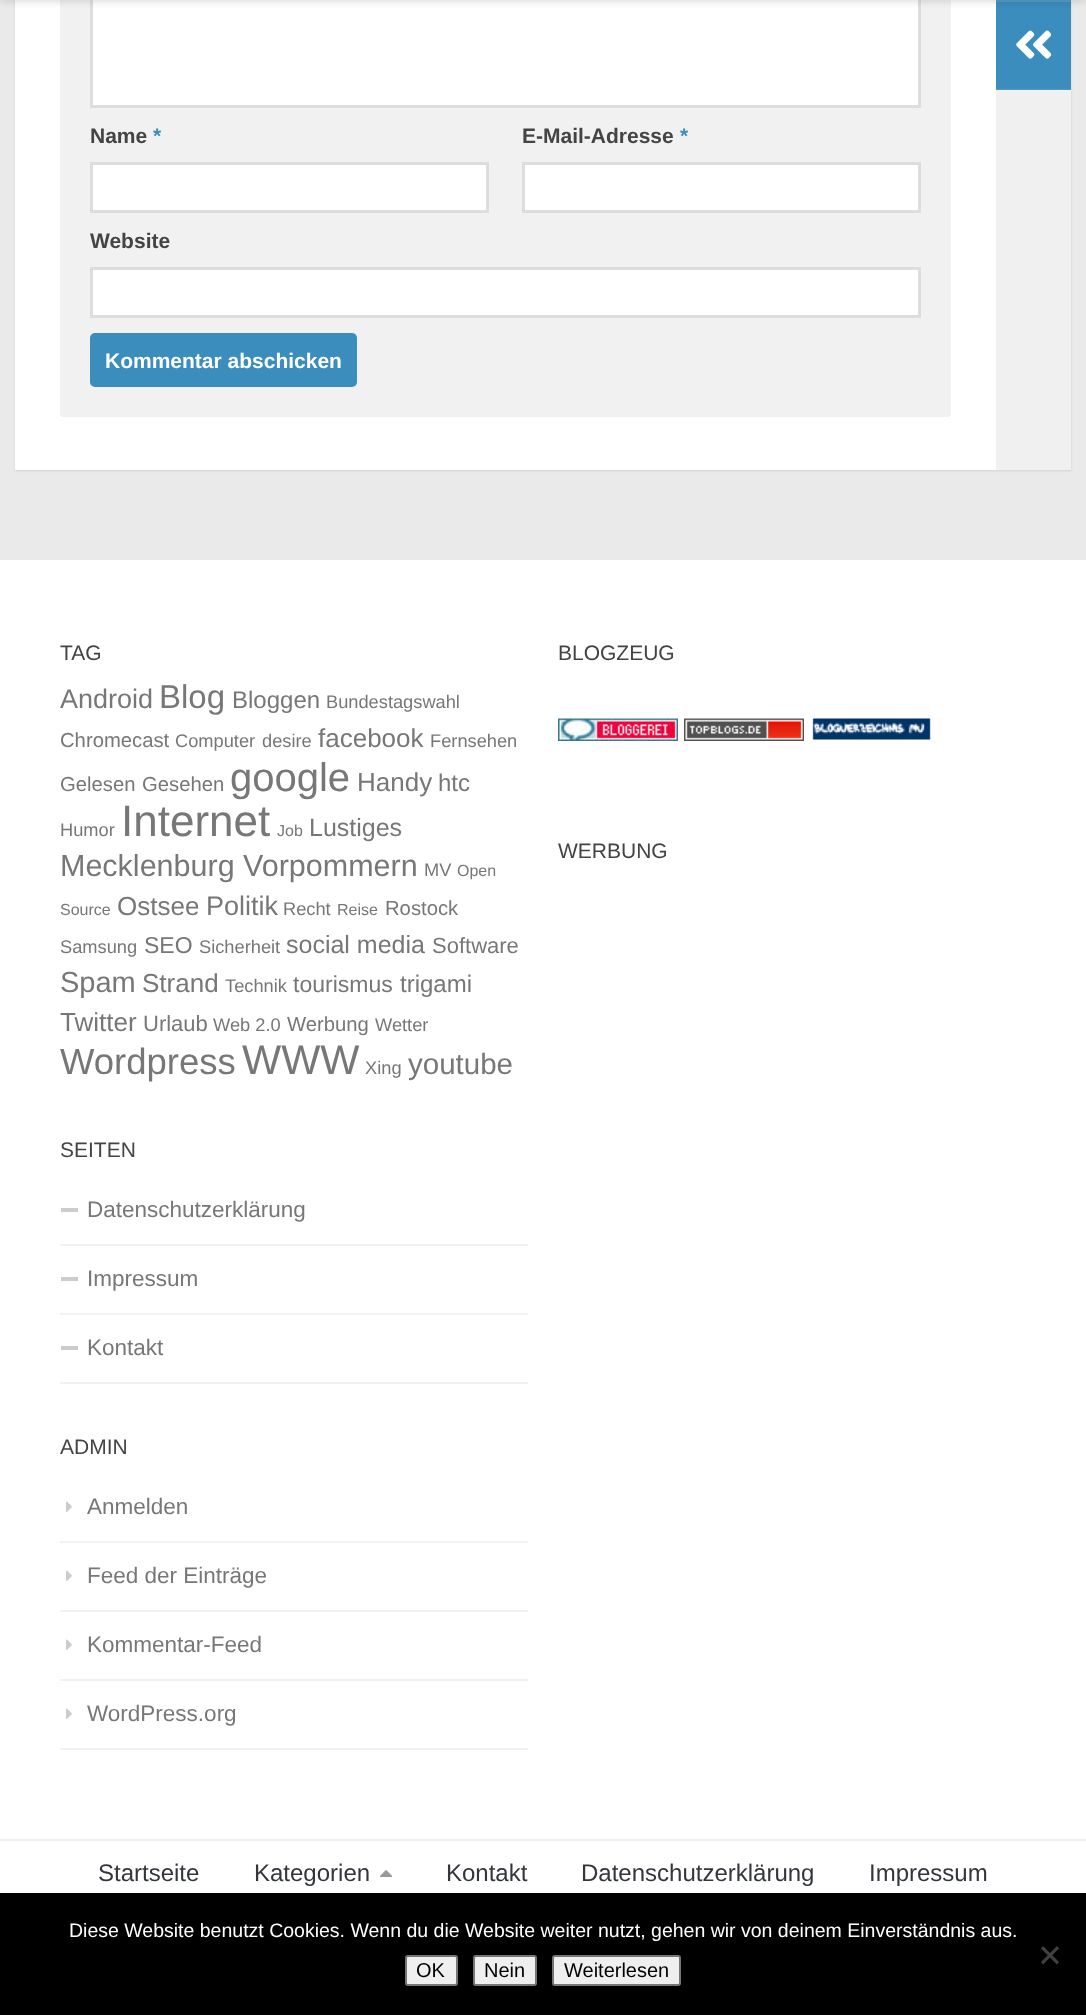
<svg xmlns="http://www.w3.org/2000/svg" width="1086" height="2015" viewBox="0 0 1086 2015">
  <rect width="100%" height="100%" fill="rgb(234,234,234)"/>
  <rect x="15" y="-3" width="1056" height="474" fill="rgba(0,0,0,0.1)" filter="blur(1px)"/>
  <rect x="15" y="0" width="981" height="470" fill="rgb(255,255,255)"/>
  <rect x="996" y="0" width="75" height="89" fill="rgb(59,141,189)"/>
  <rect x="60" y="-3" width="891" height="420" rx="3" fill="rgb(241,241,241)"/>
  <rect x="91.5" y="-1.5" width="828" height="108" fill="rgb(255,255,255)" stroke="rgb(221,221,221)" stroke-width="3"/>
  <rect x="0" y="0" width="1086" height="2" fill="rgba(255,255,255,0.15)"/>
  <rect x="0" y="-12" width="1086" height="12" fill="rgba(0,0,0,0.2)" filter="blur(4px)"/>
  <rect x="996" y="89" width="75" height="1" fill="rgb(79,152,196)"/>
  <image x="1016" y="30" width="36" height="29" href="pic1.png"/>
  <text x="90" y="143" font-family="Liberation Sans" font-size="21" font-weight="bold" fill="rgb(68,68,68)">Name</text>
  <text x="153" y="143" font-family="Liberation Sans" font-size="21" font-weight="bold" fill="rgb(59,141,189)">*</text>
  <rect x="91.5" y="163.5" width="396" height="48" fill="rgb(255,255,255)" stroke="rgb(221,221,221)" stroke-width="3"/>
  <text x="522" y="143" font-family="Liberation Sans" font-size="21" font-weight="bold" fill="rgb(68,68,68)">E-Mail-Adresse</text>
  <text x="680" y="143" font-family="Liberation Sans" font-size="21" font-weight="bold" fill="rgb(59,141,189)">*</text>
  <rect x="523.5" y="163.5" width="396" height="48" fill="rgb(255,255,255)" stroke="rgb(221,221,221)" stroke-width="3"/>
  <text x="90" y="248" font-family="Liberation Sans" font-size="21" font-weight="bold" fill="rgb(68,68,68)">Website</text>
  <rect x="91.5" y="268.5" width="828" height="48" fill="rgb(255,255,255)" stroke="rgb(221,221,221)" stroke-width="3"/>
  <rect x="90" y="333" width="267" height="54" rx="5" fill="rgb(59,141,189)"/>
  <text x="105" y="368" font-family="Liberation Sans" font-size="21" font-weight="bold" fill="rgb(255,255,255)">Kommentar abschicken</text>
  <rect x="996" y="91" width="75" height="379" fill="rgb(240,240,240)"/>
  <rect x="996" y="90" width="75" height="1" fill="rgb(242,242,242)"/>
  <rect x="0" y="560" width="1086" height="1333" fill="rgb(255,255,255)"/>
  <text x="60" y="660" font-family="Liberation Sans" font-size="21" fill="rgb(68,68,68)">TAG</text>
  <text x="60" y="708" font-family="Liberation Sans" font-size="27" fill="rgb(119,119,119)">Android</text>
  <text x="159" y="708" font-family="Liberation Sans" font-size="33" fill="rgb(119,119,119)">Blog</text>
  <text x="232" y="708" font-family="Liberation Sans" font-size="24" fill="rgb(119,119,119)">Bloggen</text>
  <text x="326" y="708" font-family="Liberation Sans" font-size="18.25" fill="rgb(119,119,119)">Bundestagswahl</text>
  <text x="60" y="747" font-family="Liberation Sans" font-size="20.25" fill="rgb(119,119,119)">Chromecast</text>
  <g font-family="Liberation Sans" font-size="18.25" fill="rgb(119,119,119)">
    <text x="175" y="747">Computer</text>
    <text x="262" y="747">desire</text>
  </g>
  <text x="318" y="747" font-family="Liberation Sans" font-size="26" fill="rgb(119,119,119)">facebook</text>
  <text x="430" y="747" font-family="Liberation Sans" font-size="18.25" fill="rgb(119,119,119)">Fernsehen</text>
  <g font-family="Liberation Sans" font-size="20.25" fill="rgb(119,119,119)">
    <text x="60" y="791">Gelesen</text>
    <text x="142" y="791">Gesehen</text>
  </g>
  <text x="230" y="791" font-family="Liberation Sans" font-size="40" fill="rgb(119,119,119)">google</text>
  <text x="357" y="791" font-family="Liberation Sans" font-size="26" fill="rgb(119,119,119)">Handy</text>
  <text x="438" y="791" font-family="Liberation Sans" font-size="24" fill="rgb(119,119,119)">htc</text>
  <text x="60" y="836" font-family="Liberation Sans" font-size="18.25" fill="rgb(119,119,119)">Humor</text>
  <text x="121" y="836" font-family="Liberation Sans" font-size="44" fill="rgb(119,119,119)">Internet</text>
  <text x="277" y="836" font-family="Liberation Sans" font-size="16" fill="rgb(119,119,119)">Job</text>
  <text x="309" y="836" font-family="Liberation Sans" font-size="25" fill="rgb(119,119,119)">Lustiges</text>
  <text x="60" y="876" font-family="Liberation Sans" font-size="30.5" fill="rgb(119,119,119)">Mecklenburg Vorpommern</text>
  <text x="424" y="876" font-family="Liberation Sans" font-size="18.25" fill="rgb(119,119,119)">MV</text>
  <g font-family="Liberation Sans" font-size="16" fill="rgb(119,119,119)">
    <text x="457" y="876">Open</text>
    <text x="60" y="915">Source</text>
  </g>
  <text x="117" y="915" font-family="Liberation Sans" font-size="26" fill="rgb(119,119,119)">Ostsee</text>
  <text x="206" y="915" font-family="Liberation Sans" font-size="27" fill="rgb(119,119,119)">Politik</text>
  <text x="283" y="915" font-family="Liberation Sans" font-size="18.25" fill="rgb(119,119,119)">Recht</text>
  <text x="337" y="915" font-family="Liberation Sans" font-size="16" fill="rgb(119,119,119)">Reise</text>
  <text x="385" y="915" font-family="Liberation Sans" font-size="20.25" fill="rgb(119,119,119)">Rostock</text>
  <text x="60" y="953" font-family="Liberation Sans" font-size="18.25" fill="rgb(119,119,119)">Samsung</text>
  <text x="144" y="953" font-family="Liberation Sans" font-size="23" fill="rgb(119,119,119)">SEO</text>
  <text x="199" y="953" font-family="Liberation Sans" font-size="18.25" fill="rgb(119,119,119)">Sicherheit</text>
  <text x="286" y="953" font-family="Liberation Sans" font-size="25" fill="rgb(119,119,119)">social media</text>
  <text x="432" y="953" font-family="Liberation Sans" font-size="22" fill="rgb(119,119,119)">Software</text>
  <text x="60" y="992" font-family="Liberation Sans" font-size="29" fill="rgb(119,119,119)">Spam</text>
  <text x="142" y="992" font-family="Liberation Sans" font-size="26" fill="rgb(119,119,119)">Strand</text>
  <text x="225" y="992" font-family="Liberation Sans" font-size="18.25" fill="rgb(119,119,119)">Technik</text>
  <text x="293" y="992" font-family="Liberation Sans" font-size="23" fill="rgb(119,119,119)">tourismus</text>
  <text x="400" y="992" font-family="Liberation Sans" font-size="24" fill="rgb(119,119,119)">trigami</text>
  <text x="60" y="1031" font-family="Liberation Sans" font-size="26" fill="rgb(119,119,119)">Twitter</text>
  <text x="143" y="1031" font-family="Liberation Sans" font-size="22" fill="rgb(119,119,119)">Urlaub</text>
  <text x="213" y="1031" font-family="Liberation Sans" font-size="18.25" fill="rgb(119,119,119)">Web 2.0</text>
  <text x="287" y="1031" font-family="Liberation Sans" font-size="20.25" fill="rgb(119,119,119)">Werbung</text>
  <text x="375" y="1031" font-family="Liberation Sans" font-size="18.25" fill="rgb(119,119,119)">Wetter</text>
  <text x="60" y="1074" font-family="Liberation Sans" font-size="36.5" fill="rgb(119,119,119)">Wordpress</text>
  <text x="242" y="1074" font-family="Liberation Sans" font-size="41.5" fill="rgb(119,119,119)">WWW</text>
  <text x="365" y="1074" font-family="Liberation Sans" font-size="18.25" fill="rgb(119,119,119)">Xing</text>
  <text x="408" y="1074" font-family="Liberation Sans" font-size="29.5" fill="rgb(119,119,119)">youtube</text>
  <text x="60" y="1157" font-family="Liberation Sans" font-size="21" fill="rgb(68,68,68)">SEITEN</text>
  <rect x="60" y="1244" width="468" height="2" fill="rgb(242,242,242)"/>
  <rect x="61" y="1208" width="17" height="4" fill="rgb(204,204,204)"/>
  <text x="87" y="1217" font-family="Liberation Sans" font-size="22.5" fill="rgb(119,119,119)">Datenschutzerklärung</text>
  <rect x="60" y="1313" width="468" height="2" fill="rgb(242,242,242)"/>
  <rect x="61" y="1277" width="17" height="4" fill="rgb(204,204,204)"/>
  <text x="87" y="1286" font-family="Liberation Sans" font-size="22.5" fill="rgb(119,119,119)">Impressum</text>
  <rect x="60" y="1382" width="468" height="2" fill="rgb(242,242,242)"/>
  <rect x="61" y="1346" width="17" height="4" fill="rgb(204,204,204)"/>
  <text x="87" y="1355" font-family="Liberation Sans" font-size="22.5" fill="rgb(119,119,119)">Kontakt</text>
  <text x="60" y="1454" font-family="Liberation Sans" font-size="21" fill="rgb(68,68,68)">ADMIN</text>
  <rect x="60" y="1541" width="468" height="2" fill="rgb(242,242,242)"/>
  <image x="66" y="1501" width="6" height="11" href="pic2.png"/>
  <text x="87" y="1514" font-family="Liberation Sans" font-size="22.5" fill="rgb(119,119,119)">Anmelden</text>
  <rect x="60" y="1610" width="468" height="2" fill="rgb(242,242,242)"/>
  <image x="66" y="1570" width="6" height="11" href="pic2.png"/>
  <text x="87" y="1583" font-family="Liberation Sans" font-size="22.5" fill="rgb(119,119,119)">Feed der Einträge</text>
  <rect x="60" y="1679" width="468" height="2" fill="rgb(242,242,242)"/>
  <image x="66" y="1639" width="6" height="11" href="pic2.png"/>
  <text x="87" y="1652" font-family="Liberation Sans" font-size="22.5" fill="rgb(119,119,119)">Kommentar-Feed</text>
  <rect x="60" y="1748" width="468" height="2" fill="rgb(242,242,242)"/>
  <image x="66" y="1708" width="6" height="11" href="pic2.png"/>
  <text x="87" y="1721" font-family="Liberation Sans" font-size="22.5" fill="rgb(119,119,119)">WordPress.org</text>
  <text x="558" y="660" font-family="Liberation Sans" font-size="21" fill="rgb(68,68,68)">BLOGZEUG</text>
  <image x="558" y="718" width="120" height="23" href="pic3.png"/>
  <image x="684" y="718" width="120" height="23" href="pic4.png"/>
  <image x="812" y="718" width="119" height="22" href="pic5.png"/>
  <text x="558" y="858" font-family="Liberation Sans" font-size="21" fill="rgb(68,68,68)">WERBUNG</text>
  <rect x="0" y="1839" width="1086" height="2" fill="rgb(238,238,238)"/>
  <g font-family="Liberation Sans" font-size="24" fill="rgb(51,54,59)">
    <text x="98" y="1881">Startseite</text>
    <text x="254" y="1881">Kategorien</text>
  </g>
  <image x="380" y="1870" width="13" height="8" href="pic6.png"/>
  <g font-family="Liberation Sans" font-size="24" fill="rgb(51,54,59)">
    <text x="446" y="1881">Kontakt</text>
    <text x="581" y="1881">Datenschutzerklärung</text>
    <text x="869" y="1881">Impressum</text>
  </g>
  <rect x="0" y="1893" width="1086" height="122" fill="rgb(0,0,0)"/>
  <text x="69" y="1937" font-family="Liberation Sans" font-size="19.5" fill="rgb(255,255,255)">Diese Website benutzt Cookies. Wenn du die Website weiter nutzt, gehen wir von deinem Einverständnis aus.</text>
  <path d="M1057 1946L1059 1948.5L1043 1964.5L1041 1962Z" fill="rgb(64,64,64)"/>
  <path d="M1041 1948.5L1043 1946L1059 1962L1057 1964.5Z" fill="rgb(64,64,64)"/>
  <rect x="406" y="1956" width="51" height="29" rx="2" fill="rgb(239,239,239)" stroke="rgb(118,118,118)" stroke-width="2"/>
  <text x="416" y="1977" font-family="Liberation Sans" font-size="20" fill="rgb(0,0,0)">OK</text>
  <rect x="474" y="1956" width="62" height="29" rx="2" fill="rgb(239,239,239)" stroke="rgb(118,118,118)" stroke-width="2"/>
  <text x="484" y="1977" font-family="Liberation Sans" font-size="20" fill="rgb(0,0,0)">Nein</text>
  <rect x="553" y="1956" width="127" height="29" rx="2" fill="rgb(239,239,239)" stroke="rgb(118,118,118)" stroke-width="2"/>
  <text x="564" y="1977" font-family="Liberation Sans" font-size="20" fill="rgb(0,0,0)">Weiterlesen</text>
</svg>
